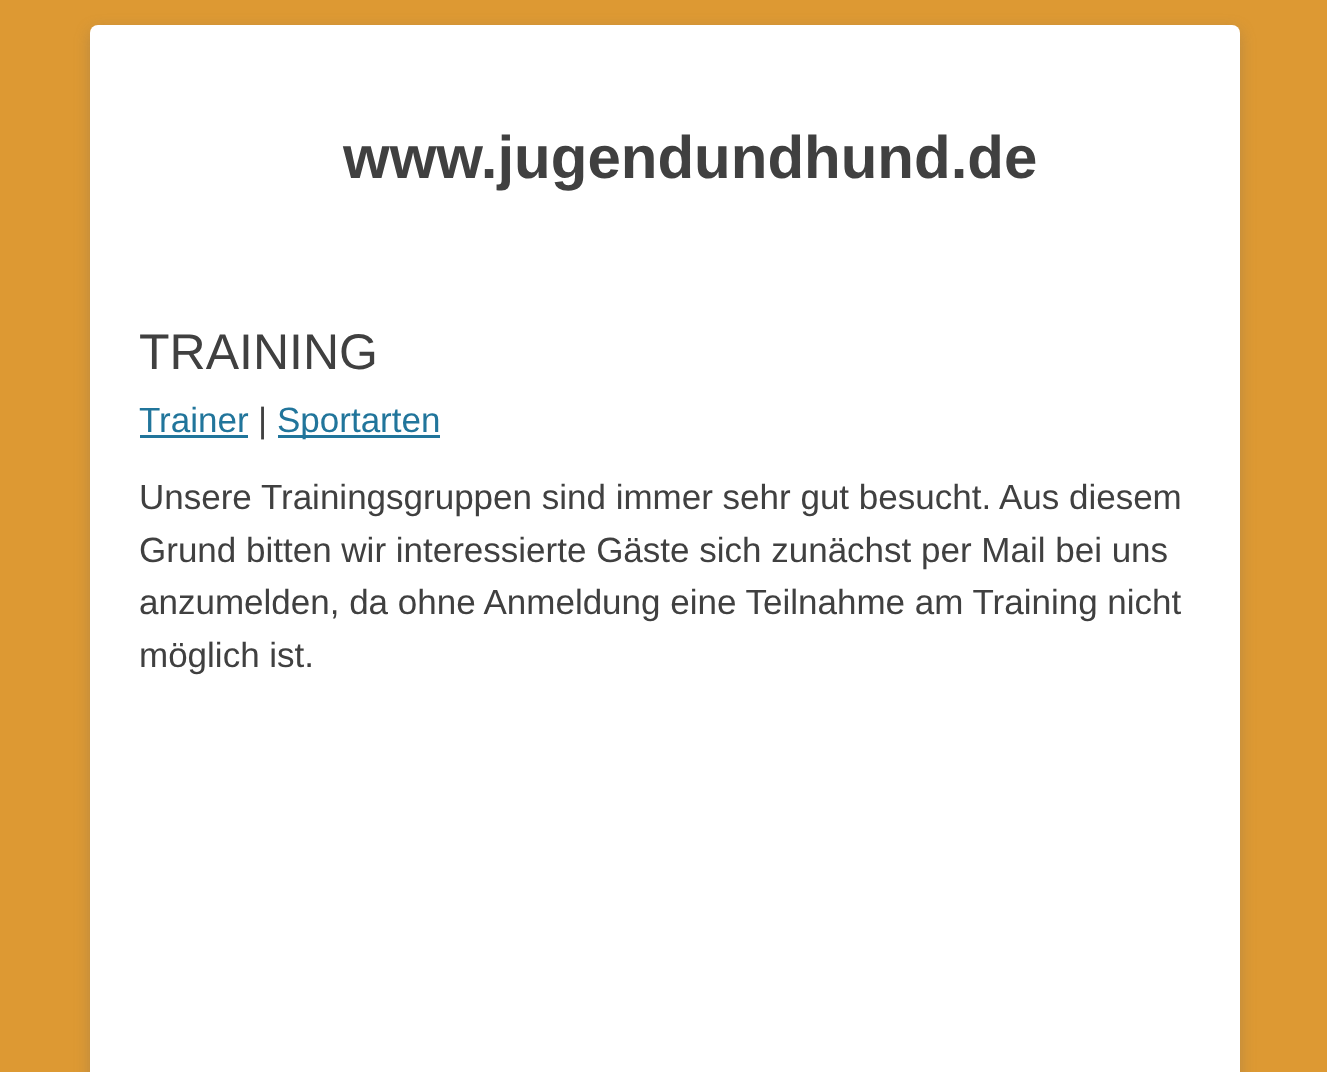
<svg xmlns="http://www.w3.org/2000/svg" width="1327" height="1072" viewBox="0 0 1327 1072">
  <rect width="100%" height="100%" fill="rgb(221,153,51)"/>
  <rect x="90" y="30" width="1150" height="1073" rx="8" fill="rgba(100,100,100,0.3)" filter="blur(7.5px)"/>
  <rect x="90" y="25" width="1150" height="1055" rx="8" fill="rgb(255,255,255)"/>
  <text x="343" y="178" font-family="Liberation Sans" font-size="60" font-weight="bold" fill="rgb(64,64,64)">www.jugendundhund.de</text>
  <text x="139" y="369" font-family="Liberation Sans" font-size="50" fill="rgb(64,64,64)">TRAINING</text>
  <text x="139" y="432" font-family="Liberation Sans" font-size="35" fill="rgb(33,117,155)">Trainer</text>
  <rect x="140" y="435" width="108" height="3" fill="rgb(33,117,155)"/>
  <text x="258" y="432" font-family="Liberation Sans" font-size="35" fill="rgb(64,64,64)">|</text>
  <rect x="278" y="435" width="162" height="3" fill="rgb(33,117,155)"/>
  <text x="277" y="432" font-family="Liberation Sans" font-size="35" fill="rgb(33,117,155)">Sportarten</text>
  <g font-family="Liberation Sans" font-size="35" fill="rgb(64,64,64)">
    <text>
      <tspan x="139" y="509">Unsere Trainingsgruppen sind immer sehr gut besucht. Aus diesem</tspan>
      <tspan x="139" y="562">Grund bitten wir interessierte Gäste sich zunächst per Mail bei uns</tspan>
      <tspan x="139" y="614">anzumelden, da ohne Anmeldung eine Teilnahme am Training nicht</tspan>
      <tspan x="139" y="667">möglich ist.</tspan>
    </text>
  </g>
</svg>
